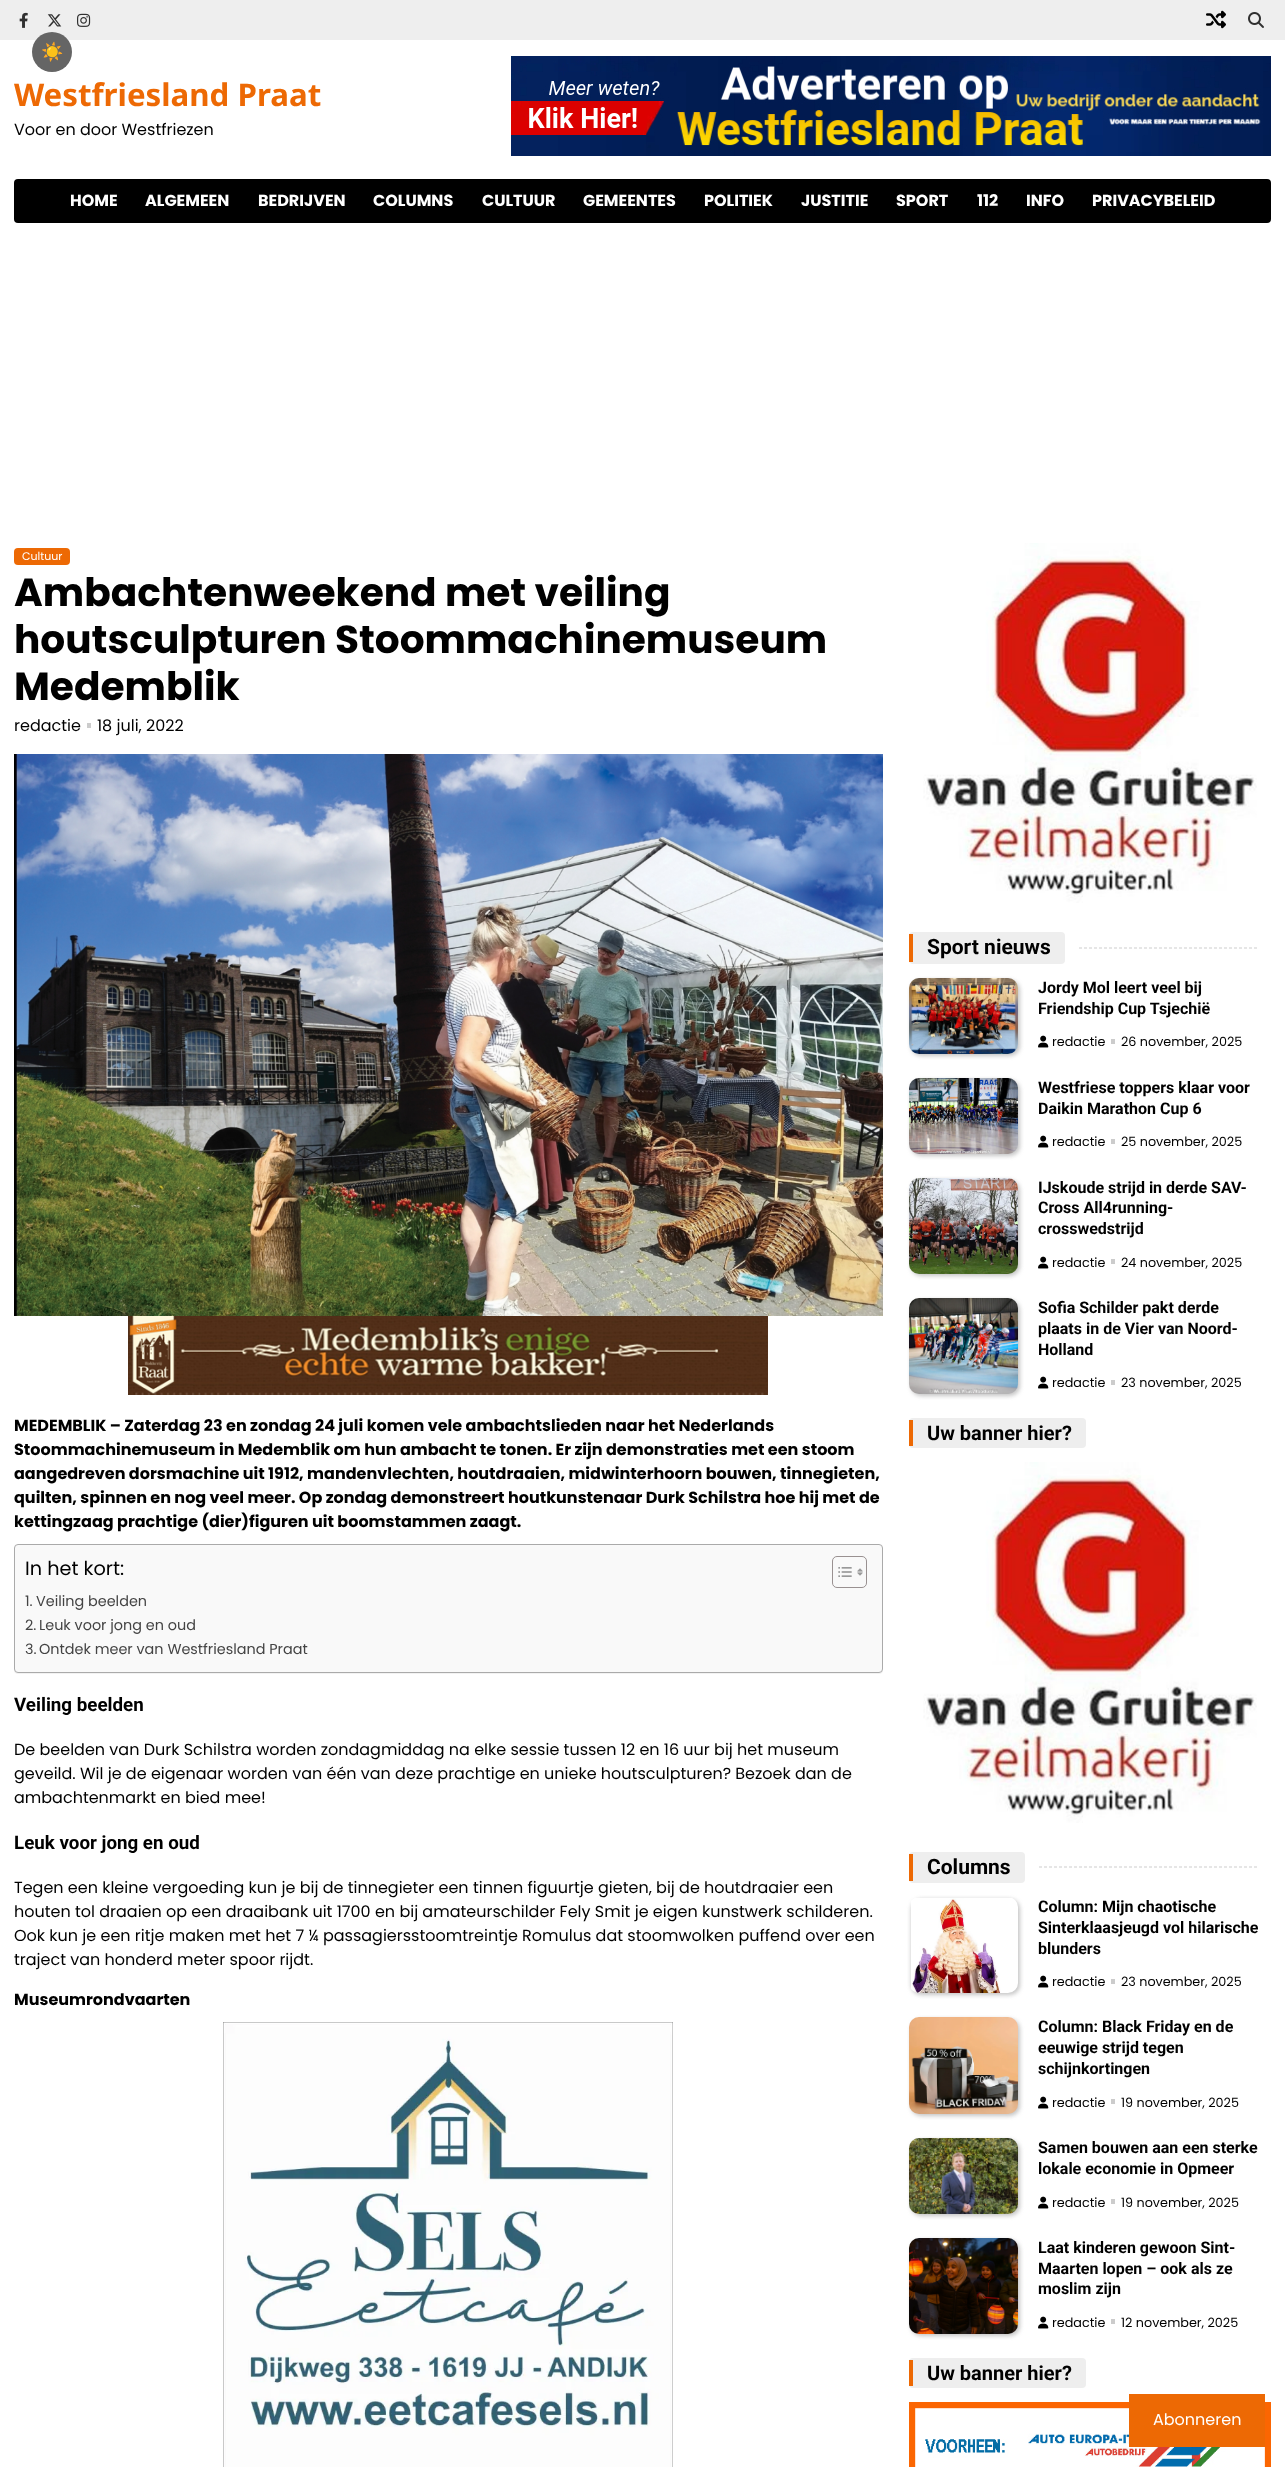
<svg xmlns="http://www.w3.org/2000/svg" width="1285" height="2467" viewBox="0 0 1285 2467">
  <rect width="100%" height="100%" fill="rgb(255,255,255)"/>
  <rect x="0" y="0" width="1285" height="40" fill="rgb(238,238,238)"/>
  <circle cx="52" cy="52" r="20" fill="rgb(101,101,101)"/>
  <text x="41" y="58" font-family="Noto Color Emoji" font-size="18" font-weight="bold" fill="rgb(238,238,238)">☀️</text>
  <image x="19" y="12" width="9" height="16" href="pic1.png"/>
  <image x="47" y="14" width="15" height="13" href="pic2.png"/>
  <image x="77" y="13" width="14" height="14" href="pic3.png"/>
  <image x="1206" y="10" width="20" height="19" href="pic4.png"/>
  <image x="1248" y="12" width="16" height="16" href="pic5.png"/>
  <text x="14" y="106" font-family="Noto Sans" font-size="31.25" font-weight="bold" fill="rgb(237,105,4)">Westfriesland Praat</text>
  <text x="14" y="135" font-family="Poppins" font-size="16" fill="rgb(0,0,0)">Voor en door Westfriezen</text>
  <image x="511" y="56" width="760" height="100" href="pic6.png"/>
  <rect x="14" y="179" width="1257" height="44" rx="4" fill="rgb(0,0,0)"/>
  <g font-family="Poppins" font-size="16" font-weight="bold" fill="rgb(255,255,255)">
    <text x="70" y="206">HOME</text>
    <text x="145" y="206">ALGEMEEN</text>
    <text x="258" y="206">BEDRIJVEN</text>
    <text x="373" y="206">COLUMNS</text>
    <text x="482" y="206">CULTUUR</text>
    <text x="583" y="206">GEMEENTES</text>
    <text x="704" y="206">POLITIEK</text>
    <text x="801" y="206">JUSTITIE</text>
    <text x="896" y="206">SPORT</text>
    <text x="977" y="206">112</text>
    <text x="1026" y="206">INFO</text>
    <text x="1092" y="206">PRIVACYBELEID</text>
  </g>
  <rect x="14" y="548" width="56" height="17" rx="4" fill="rgb(237,105,4)"/>
  <text x="22" y="560" font-family="Poppins" font-size="11" fill="rgb(255,255,255)">Cultuur</text>
  <g font-family="Poppins" font-size="39.1" font-weight="bold" fill="rgb(0,0,0)">
    <text>
      <tspan x="14" y="606">Ambachtenweekend met veiling</tspan>
      <tspan x="14" y="653">houtsculpturen Stoommachinemuseum</tspan>
      <tspan x="14" y="700">Medemblik</tspan>
    </text>
  </g>
  <text x="14" y="731" font-family="Poppins" font-size="16" fill="rgb(0,0,0)">redactie</text>
  <rect x="87" y="723" width="4" height="5" fill="rgb(204,204,204)"/>
  <text x="97" y="731" font-family="Poppins" font-size="16" fill="rgb(0,0,0)">18 juli, 2022</text>
  <image x="14" y="754" width="869" height="562" href="pic7.png"/>
  <image x="128" y="1316" width="640" height="79" href="pic8.png"/>
  <g font-family="Poppins" font-size="16" font-weight="bold" fill="rgb(0,0,0)">
    <text>
      <tspan x="14" y="1431">MEDEMBLIK – Zaterdag 23 en zondag 24 juli komen vele ambachtslieden naar het Nederlands</tspan>
      <tspan x="14" y="1455">Stoommachinemuseum in Medemblik om hun ambacht te tonen. Er zijn demonstraties met een stoom</tspan>
      <tspan x="14" y="1479">aangedreven dorsmachine uit 1912, mandenvlechten, houtdraaien, midwinterhoorn bouwen, tinnegieten,</tspan>
      <tspan x="14" y="1503">quilten, spinnen en nog veel meer. Op zondag demonstreert houtkunstenaar Durk Schilstra hoe hij met de</tspan>
      <tspan x="14" y="1527">kettingzaag prachtige (dier)figuren uit boomstammen zaagt.</tspan>
    </text>
  </g>
  <rect x="14" y="1545" width="869" height="129" rx="4" fill="rgba(0,0,0,0.05)" filter="blur(0.5px)"/>
  <rect x="14.5" y="1544.5" width="868" height="128" rx="3.5" fill="rgb(249,249,249)" stroke="rgb(170,170,170)"/>
  <text x="25" y="1575" font-family="Poppins" font-size="19.25" fill="rgb(0,0,0)">In het kort:</text>
  <rect x="832.5" y="1556.5" width="34" height="31" rx="4.5" fill="none" stroke="rgb(153,145,145)"/>
  <image x="838" y="1567" width="14" height="10" href="pic9.png"/>
  <image x="857" y="1568" width="6" height="8" href="pic10.png"/>
  <g font-family="Poppins" font-size="14.4" fill="rgb(68,68,68)">
    <text x="25" y="1606">1.</text>
    <text x="36" y="1606">Veiling beelden</text>
    <text x="25" y="1630">2.</text>
    <text x="39" y="1630">Leuk voor jong en oud</text>
    <text x="25" y="1654">3.</text>
    <text x="39" y="1654">Ontdek meer van Westfriesland Praat</text>
  </g>
  <text x="14" y="1711" font-family="Roboto" font-size="18.75" font-weight="bold" fill="rgb(0,0,0)">Veiling beelden</text>
  <g font-family="Poppins" font-size="16" fill="rgb(0,0,0)">
    <text>
      <tspan x="14" y="1755">De beelden van Durk Schilstra worden zondagmiddag na elke sessie tussen 12 en 16 uur bij het museum</tspan>
      <tspan x="14" y="1779">geveild. Wil je de eigenaar worden van één van deze prachtige en unieke houtsculpturen? Bezoek dan de</tspan>
      <tspan x="14" y="1803">ambachtenmarkt en bied mee!</tspan>
    </text>
  </g>
  <text x="14" y="1849" font-family="Roboto" font-size="18.75" font-weight="bold" fill="rgb(0,0,0)">Leuk voor jong en oud</text>
  <g font-family="Poppins" font-size="16" fill="rgb(0,0,0)">
    <text>
      <tspan x="14" y="1893">Tegen een kleine vergoeding kun je bij de tinnegieter een tinnen figuurtje gieten, bij de houtdraaier een</tspan>
      <tspan x="14" y="1917">houten tol draaien op een draaibank uit 1700 en bij amateurschilder Fely Smit je eigen kunstwerk schilderen.</tspan>
      <tspan x="14" y="1941">Ook kun je een ritje maken met het 7 ¼ passagiersstoomtreintje Romulus dat stoomwolken puffend over een</tspan>
      <tspan x="14" y="1965">traject van honderd meter spoor rijdt.</tspan>
    </text>
  </g>
  <text x="14" y="2005" font-family="Poppins" font-size="16" font-weight="bold" fill="rgb(0,0,0)">Museumrondvaarten</text>
  <image x="223" y="2022" width="450" height="445" href="pic11.png"/>
  <image x="923" y="543" width="334" height="360" href="pic12.png"/>
  <rect x="909" y="932" width="156" height="32" rx="4" fill="rgb(238,238,238)"/>
  <rect x="909" y="934" width="4" height="28" fill="rgb(237,105,4)"/>
  <text x="927" y="954" font-family="Roboto" font-size="21" font-weight="bold" fill="rgb(0,0,0)">Sport nieuws</text>
  <path d="M1079 947.5H1257" fill="none" stroke="rgb(230,230,230)" stroke-dasharray="3 2"/>
  <rect x="1256" y="947" width="1" height="2" fill="rgb(230,230,230)"/>
  <path d="M1079 948.5H1257" fill="none" stroke="rgb(230,230,230)" stroke-dasharray="3 2"/>
  <rect x="911" y="980" width="109" height="76" rx="10" fill="rgba(128,128,128,0.46)" filter="blur(2px)"/>
  <image x="909" y="978" width="109" height="76" href="pic13.png"/>
  <g font-family="Roboto" font-size="16" font-weight="bold" fill="rgb(0,0,0)">
    <text>
      <tspan x="1038" y="993">Jordy Mol leert veel bij</tspan>
      <tspan x="1038" y="1014">Friendship Cup Tsjechië</tspan>
    </text>
  </g>
  <image x="1038" y="1035" width="11" height="13" href="pic14.png"/>
  <text x="1052" y="1046" font-family="Poppins" font-size="12.75" fill="rgb(0,0,0)">redactie</text>
  <rect x="1111" y="1039" width="4" height="5" fill="rgb(204,204,204)"/>
  <text x="1121" y="1046" font-family="Poppins" font-size="12.75" fill="rgb(0,0,0)">26 november, 2025</text>
  <rect x="911" y="1080" width="109" height="76" rx="10" fill="rgba(128,128,128,0.46)" filter="blur(2px)"/>
  <image x="909" y="1078" width="109" height="76" href="pic15.png"/>
  <g font-family="Roboto" font-size="16" font-weight="bold" fill="rgb(0,0,0)">
    <text>
      <tspan x="1038" y="1093">Westfriese toppers klaar voor</tspan>
      <tspan x="1038" y="1114">Daikin Marathon Cup 6</tspan>
    </text>
  </g>
  <image x="1038" y="1135" width="11" height="13" href="pic14.png"/>
  <text x="1052" y="1146" font-family="Poppins" font-size="12.75" fill="rgb(0,0,0)">redactie</text>
  <rect x="1111" y="1139" width="4" height="5" fill="rgb(204,204,204)"/>
  <text x="1121" y="1146" font-family="Poppins" font-size="12.75" fill="rgb(0,0,0)">25 november, 2025</text>
  <rect x="911" y="1180" width="109" height="96" rx="10" fill="rgba(128,128,128,0.46)" filter="blur(2px)"/>
  <image x="909" y="1178" width="109" height="96" href="pic16.png"/>
  <g font-family="Roboto" font-size="16" font-weight="bold" fill="rgb(0,0,0)">
    <text>
      <tspan x="1038" y="1193">IJskoude strijd in derde SAV-</tspan>
      <tspan x="1038" y="1213">Cross All4running-</tspan>
      <tspan x="1038" y="1234">crosswedstrijd</tspan>
    </text>
  </g>
  <image x="1038" y="1256" width="11" height="13" href="pic14.png"/>
  <text x="1052" y="1267" font-family="Poppins" font-size="12.75" fill="rgb(0,0,0)">redactie</text>
  <rect x="1111" y="1259" width="4" height="5" fill="rgb(204,204,204)"/>
  <text x="1121" y="1267" font-family="Poppins" font-size="12.75" fill="rgb(0,0,0)">24 november, 2025</text>
  <rect x="911" y="1300" width="109" height="96" rx="10" fill="rgba(128,128,128,0.46)" filter="blur(2px)"/>
  <image x="909" y="1298" width="109" height="96" href="pic17.png"/>
  <g font-family="Roboto" font-size="16" font-weight="bold" fill="rgb(0,0,0)">
    <text>
      <tspan x="1038" y="1313">Sofia Schilder pakt derde</tspan>
      <tspan x="1038" y="1334">plaats in de Vier van Noord-</tspan>
      <tspan x="1038" y="1355">Holland</tspan>
    </text>
  </g>
  <image x="1038" y="1376" width="11" height="13" href="pic14.png"/>
  <text x="1052" y="1387" font-family="Poppins" font-size="12.75" fill="rgb(0,0,0)">redactie</text>
  <rect x="1111" y="1380" width="4" height="5" fill="rgb(204,204,204)"/>
  <text x="1121" y="1387" font-family="Poppins" font-size="12.75" fill="rgb(0,0,0)">23 november, 2025</text>
  <rect x="909" y="1418" width="177" height="30" rx="4" fill="rgb(238,238,238)"/>
  <rect x="909" y="1420" width="4" height="26" fill="rgb(237,105,4)"/>
  <text x="927" y="1440" font-family="Roboto" font-size="20" font-weight="bold" fill="rgb(0,0,0)">Uw banner hier?</text>
  <image x="923" y="1462" width="334" height="361" href="pic18.png"/>
  <rect x="909" y="1852" width="116" height="31" rx="4" fill="rgb(238,238,238)"/>
  <rect x="909" y="1854" width="4" height="27" fill="rgb(237,105,4)"/>
  <text x="927" y="1874" font-family="Roboto" font-size="21" font-weight="bold" fill="rgb(0,0,0)">Columns</text>
  <path d="M1039 1866.5H1257" fill="none" stroke="rgb(230,230,230)" stroke-dasharray="3 2"/>
  <rect x="1256" y="1866" width="1" height="2" fill="rgb(230,230,230)"/>
  <path d="M1039 1867.5H1257" fill="none" stroke="rgb(230,230,230)" stroke-dasharray="3 2"/>
  <rect x="911" y="1899" width="109" height="96" rx="10" fill="rgba(128,128,128,0.46)" filter="blur(2px)"/>
  <image x="911" y="1898" width="107" height="95" href="pic19.png"/>
  <g font-family="Roboto" font-size="16" font-weight="bold" fill="rgb(0,0,0)">
    <text>
      <tspan x="1038" y="1912">Column: Mijn chaotische</tspan>
      <tspan x="1038" y="1933">Sinterklaasjeugd vol hilarische</tspan>
      <tspan x="1038" y="1954">blunders</tspan>
    </text>
  </g>
  <image x="1038" y="1975" width="11" height="13" href="pic14.png"/>
  <text x="1052" y="1986" font-family="Poppins" font-size="12.75" fill="rgb(0,0,0)">redactie</text>
  <rect x="1111" y="1979" width="4" height="5" fill="rgb(204,204,204)"/>
  <text x="1121" y="1986" font-family="Poppins" font-size="12.75" fill="rgb(0,0,0)">23 november, 2025</text>
  <rect x="911" y="2019" width="109" height="97" rx="10" fill="rgba(128,128,128,0.46)" filter="blur(2px)"/>
  <image x="909" y="2017" width="109" height="97" href="pic20.png"/>
  <g font-family="Roboto" font-size="16" font-weight="bold" fill="rgb(0,0,0)">
    <text>
      <tspan x="1038" y="2032">Column: Black Friday en de</tspan>
      <tspan x="1038" y="2053">eeuwige strijd tegen</tspan>
      <tspan x="1038" y="2074">schijnkortingen</tspan>
    </text>
  </g>
  <image x="1038" y="2096" width="11" height="13" href="pic14.png"/>
  <text x="1052" y="2107" font-family="Poppins" font-size="12.75" fill="rgb(0,0,0)">redactie</text>
  <rect x="1111" y="2099" width="4" height="5" fill="rgb(204,204,204)"/>
  <text x="1121" y="2107" font-family="Poppins" font-size="12.75" fill="rgb(0,0,0)">19 november, 2025</text>
  <rect x="911" y="2140" width="109" height="76" rx="10" fill="rgba(128,128,128,0.46)" filter="blur(2px)"/>
  <image x="909" y="2138" width="109" height="76" href="pic21.png"/>
  <g font-family="Roboto" font-size="16" font-weight="bold" fill="rgb(0,0,0)">
    <text>
      <tspan x="1038" y="2153">Samen bouwen aan een sterke</tspan>
      <tspan x="1038" y="2174">lokale economie in Opmeer</tspan>
    </text>
  </g>
  <image x="1038" y="2196" width="11" height="13" href="pic14.png"/>
  <text x="1052" y="2207" font-family="Poppins" font-size="12.75" fill="rgb(0,0,0)">redactie</text>
  <rect x="1111" y="2199" width="4" height="5" fill="rgb(204,204,204)"/>
  <text x="1121" y="2207" font-family="Poppins" font-size="12.75" fill="rgb(0,0,0)">19 november, 2025</text>
  <rect x="911" y="2240" width="109" height="96" rx="10" fill="rgba(128,128,128,0.46)" filter="blur(2px)"/>
  <image x="909" y="2238" width="109" height="96" href="pic22.png"/>
  <g font-family="Roboto" font-size="16" font-weight="bold" fill="rgb(0,0,0)">
    <text>
      <tspan x="1038" y="2253">Laat kinderen gewoon Sint-</tspan>
      <tspan x="1038" y="2274">Maarten lopen – ook als ze</tspan>
      <tspan x="1038" y="2294">moslim zijn</tspan>
    </text>
  </g>
  <image x="1038" y="2316" width="11" height="13" href="pic14.png"/>
  <text x="1052" y="2327" font-family="Poppins" font-size="12.75" fill="rgb(0,0,0)">redactie</text>
  <rect x="1111" y="2319" width="4" height="5" fill="rgb(204,204,204)"/>
  <text x="1121" y="2327" font-family="Poppins" font-size="12.75" fill="rgb(0,0,0)">12 november, 2025</text>
  <rect x="909" y="2358" width="177" height="30" rx="4" fill="rgb(238,238,238)"/>
  <rect x="909" y="2360" width="4" height="26" fill="rgb(237,105,4)"/>
  <text x="927" y="2380" font-family="Roboto" font-size="20" font-weight="bold" fill="rgb(0,0,0)">Uw banner hier?</text>
  <image x="909" y="2402" width="362" height="65" href="pic23.png"/>
  <rect x="1129" y="2394" width="136" height="53" fill="rgb(237,105,4)"/>
  <text x="1153" y="2425" font-family="Poppins" font-size="16" fill="rgb(255,255,255)">Abonneren</text>
</svg>
